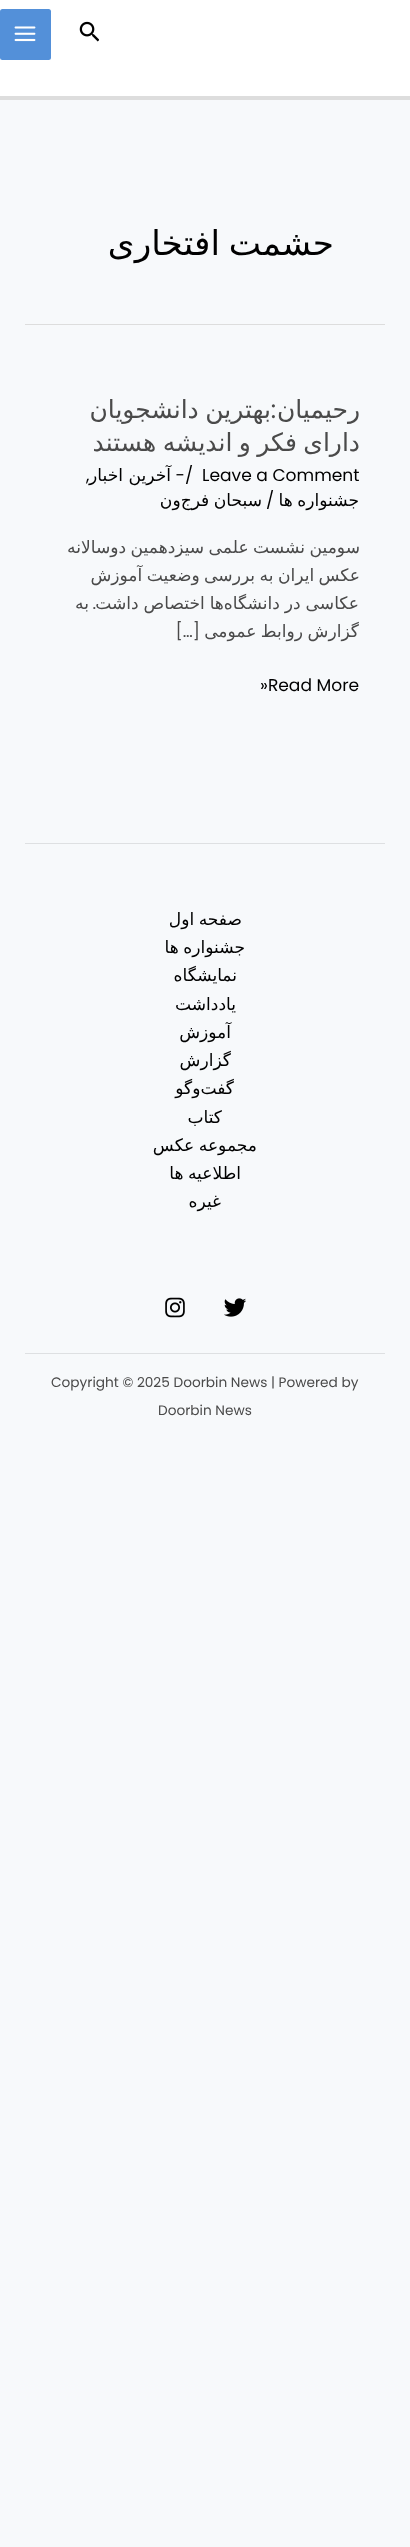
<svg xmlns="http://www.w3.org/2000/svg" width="410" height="2547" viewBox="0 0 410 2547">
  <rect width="100%" height="100%" fill="rgb(247,249,251)"/>
  <rect x="0" y="0" width="410" height="96" fill="rgb(255,255,255)"/>
  <rect x="0" y="96" width="410" height="4" fill="rgb(221,221,221)"/>
  <image x="79" y="21" width="20" height="21" href="pic1.png"/>
  <rect x="0" y="9" width="51" height="51" rx="2.5" fill="rgb(83,144,217)"/>
  <image x="14" y="26" width="22" height="16" href="pic2.png"/>
  <rect x="25" y="324" width="360" height="1" fill="rgb(221,221,221)"/>
  <text x="334" y="255" word-spacing="-2" font-family="DejaVu Sans" font-size="34.25" direction="rtl" fill="rgb(0,0,0)">حشمت افتخاری</text>
  <text x="360" y="418" font-family="DejaVu Sans" font-size="25" direction="rtl" fill="rgb(74,74,74)">رحیمیان</text>
  <text x="276" y="418" font-family="Poppins" font-size="25" direction="rtl" fill="rgb(74,74,74)">:</text>
  <g font-family="DejaVu Sans" font-size="25" direction="rtl" fill="rgb(74,74,74)">
    <text x="271" y="418" word-spacing="-1.5">بهترین دانشجویان</text>
    <text x="360" y="451" word-spacing="-1.5">دارای فکر و اندیشه هستند</text>
  </g>
  <g font-family="Poppins" font-size="17.1" fill="rgb(0,0,0)">
    <text x="202" y="481">Leave a Comment</text>
    <text x="185" y="481">/</text>
  </g>
  <text x="185" y="481" font-family="Poppins" font-size="17.1" direction="rtl" fill="rgb(0,0,0)">-</text>
  <text x="171" y="481" font-family="DejaVu Sans" font-size="17.1" direction="rtl" fill="rgb(0,0,0)">آخرین اخبار</text>
  <text x="86" y="481" font-family="Poppins" font-size="17.1" fill="rgb(0,0,0)">,</text>
  <text x="359" y="506" word-spacing="-1" font-family="DejaVu Sans" font-size="17.1" direction="rtl" fill="rgb(0,0,0)">جشنواره ها</text>
  <text x="266" y="506" font-family="Poppins" font-size="17.1" fill="rgb(0,0,0)">/</text>
  <text x="262" y="506" word-spacing="-1" font-family="DejaVu Sans" font-size="17.1" direction="rtl" fill="rgb(0,0,0)">سبحان فرج‌ون</text>
  <g font-family="DejaVu Sans" font-size="17.1" direction="rtl" fill="rgb(74,74,74)">
    <text>
      <tspan x="360" y="553" word-spacing="-1">سومین نشست علمی سیزدهمین دوسالانه</tspan>
      <tspan x="360" y="581" word-spacing="-1">عکس ایران به بررسی وضعیت آموزش</tspan>
    </text>
    <text x="359" y="609" word-spacing="-0.5">عکاسی در دانشگاه‌ها اختصاص داشت</text>
  </g>
  <text x="96" y="609" font-family="Poppins" font-size="17.1" direction="rtl" fill="rgb(74,74,74)">.</text>
  <g font-family="DejaVu Sans" font-size="17.1" direction="rtl" fill="rgb(74,74,74)">
    <text x="89" y="609">به</text>
    <text x="359" y="637" word-spacing="-1">گزارش روابط عمومی</text>
  </g>
  <text x="200" y="637" font-family="Poppins" font-size="17.1" direction="rtl" fill="rgb(74,74,74)">[…]</text>
  <text x="260" y="691" font-family="Poppins" font-size="17.1" fill="rgb(0,0,0)">»Read More</text>
  <rect x="25" y="843" width="360" height="1" fill="rgb(222,224,226)"/>
  <g font-family="DejaVu Sans" font-size="17.1" direction="rtl" fill="rgb(0,0,0)">
    <text x="242" y="925" word-spacing="-1">صفحه اول</text>
    <text x="245" y="953" word-spacing="-1">جشنواره ها</text>
    <text x="237" y="981">نمایشگاه</text>
    <text x="236" y="1010">یادداشت</text>
    <text>
      <tspan x="231" y="1038">آموزش</tspan>
      <tspan x="231" y="1066">گزارش</tspan>
    </text>
    <text x="234" y="1094">گفت‌وگو</text>
    <text x="222" y="1123">کتاب</text>
    <text x="257" y="1151" word-spacing="-1">مجموعه عکس</text>
    <text x="241" y="1179" word-spacing="-1">اطلاعیه ها</text>
    <text x="221" y="1207">غیره</text>
  </g>
  <image x="224" y="1298" width="22" height="19" href="pic3.png"/>
  <image x="165" y="1297" width="20" height="21" href="pic4.png"/>
  <rect x="25" y="1353" width="360" height="1" fill="rgb(222,224,226)"/>
  <g font-family="Poppins" font-size="13.7" fill="rgb(74,74,74)">
    <text x="51" y="1387">Copyright © 2025 Doorbin News | Powered by</text>
    <text x="158" y="1415">Doorbin News</text>
  </g>
</svg>
